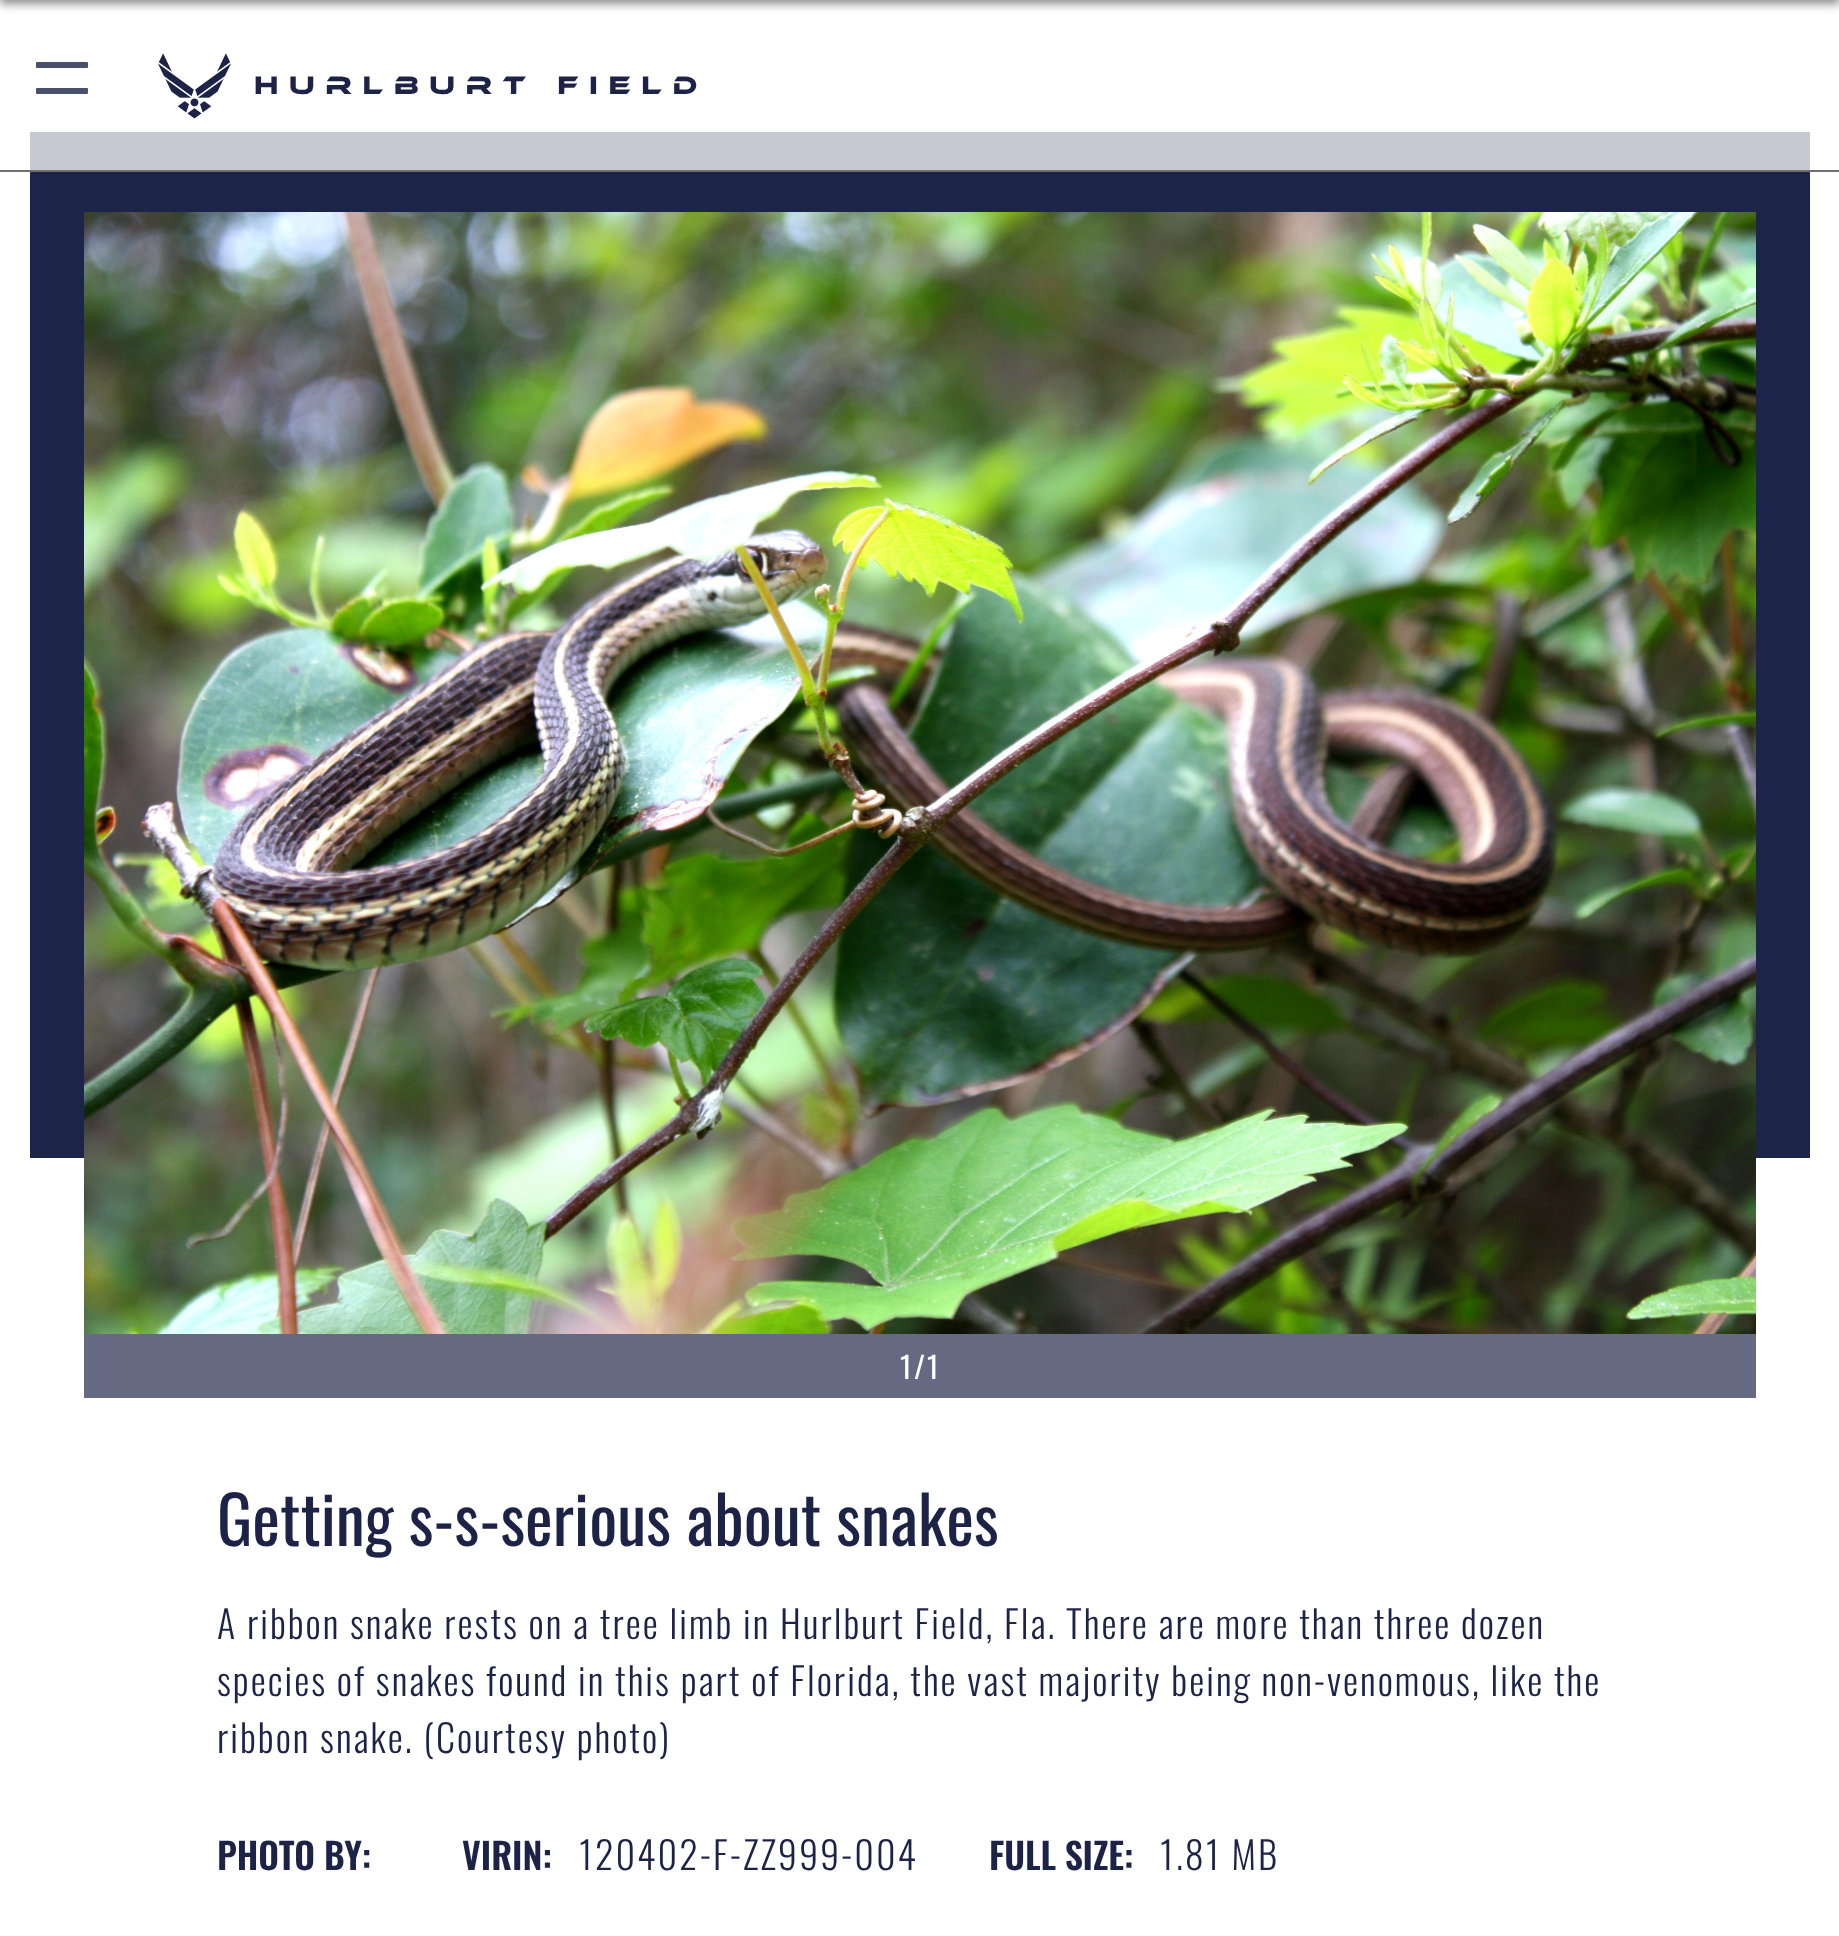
<svg xmlns="http://www.w3.org/2000/svg" width="1839" height="1936" viewBox="0 0 1839 1936">
  <rect width="100%" height="100%" fill="rgb(255,255,255)"/>
  <rect x="0" y="-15" width="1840" height="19" fill="rgba(26,26,26,0.5)" filter="blur(5px)"/>
  <rect x="0" y="170" width="1839" height="2" fill="rgb(112,112,112)"/>
  <rect x="36" y="62" width="52" height="6" rx="1" fill="rgb(73,80,109)"/>
  <rect x="36" y="88" width="52" height="6" rx="1" fill="rgb(73,80,109)"/>
  <image x="158" y="53" width="73" height="66" href="pic1.png"/>
  <text x="254" y="94" font-family="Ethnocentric" font-size="26" letter-spacing="10.6" fill="rgb(28,35,71)">Hurlburt Field</text>
  <rect x="30" y="172" width="1780" height="986" fill="rgb(28,36,73)"/>
  <rect x="30" y="132" width="1780" height="38" fill="rgb(198,200,210)"/>
  <image x="84" y="212" width="1672" height="1122" href="pic2.png"/>
  <rect x="84" y="1334" width="1672" height="64" fill="rgb(101,106,130)"/>
  <text x="900" y="1379" font-family="Oswald" font-size="30" letter-spacing="2" fill="rgb(255,255,255)">1/1</text>
  <text x="217" y="1546" font-family="Oswald" font-size="66" fill="rgb(28,35,71)">Getting s-s-serious about snakes</text>
  <g font-family="Oswald" font-size="38" font-weight="300" letter-spacing="2" fill="rgb(28,35,71)">
    <text>
      <tspan x="217" y="1639">A ribbon snake rests on a tree limb in Hurlburt Field, Fla. There are more than three dozen</tspan>
      <tspan x="217" y="1696">species of snakes found in this part of Florida, the vast majority being non-venomous, like the</tspan>
      <tspan x="217" y="1753">ribbon snake. (Courtesy photo)</tspan>
    </text>
  </g>
  <g font-family="Oswald" font-size="36" font-weight="600" fill="rgb(28,35,71)">
    <text x="217" y="1870">PHOTO BY:</text>
    <text x="462" y="1870">VIRIN:</text>
  </g>
  <text x="579" y="1870" font-family="Oswald" font-size="38" font-weight="300" letter-spacing="2" fill="rgb(28,35,71)">120402-F-ZZ999-004</text>
  <text x="989" y="1870" font-family="Oswald" font-size="36" font-weight="600" fill="rgb(28,35,71)">FULL SIZE:</text>
  <text x="1160" y="1870" font-family="Oswald" font-size="38" font-weight="300" letter-spacing="2" fill="rgb(28,35,71)">1.81 MB</text>
</svg>
